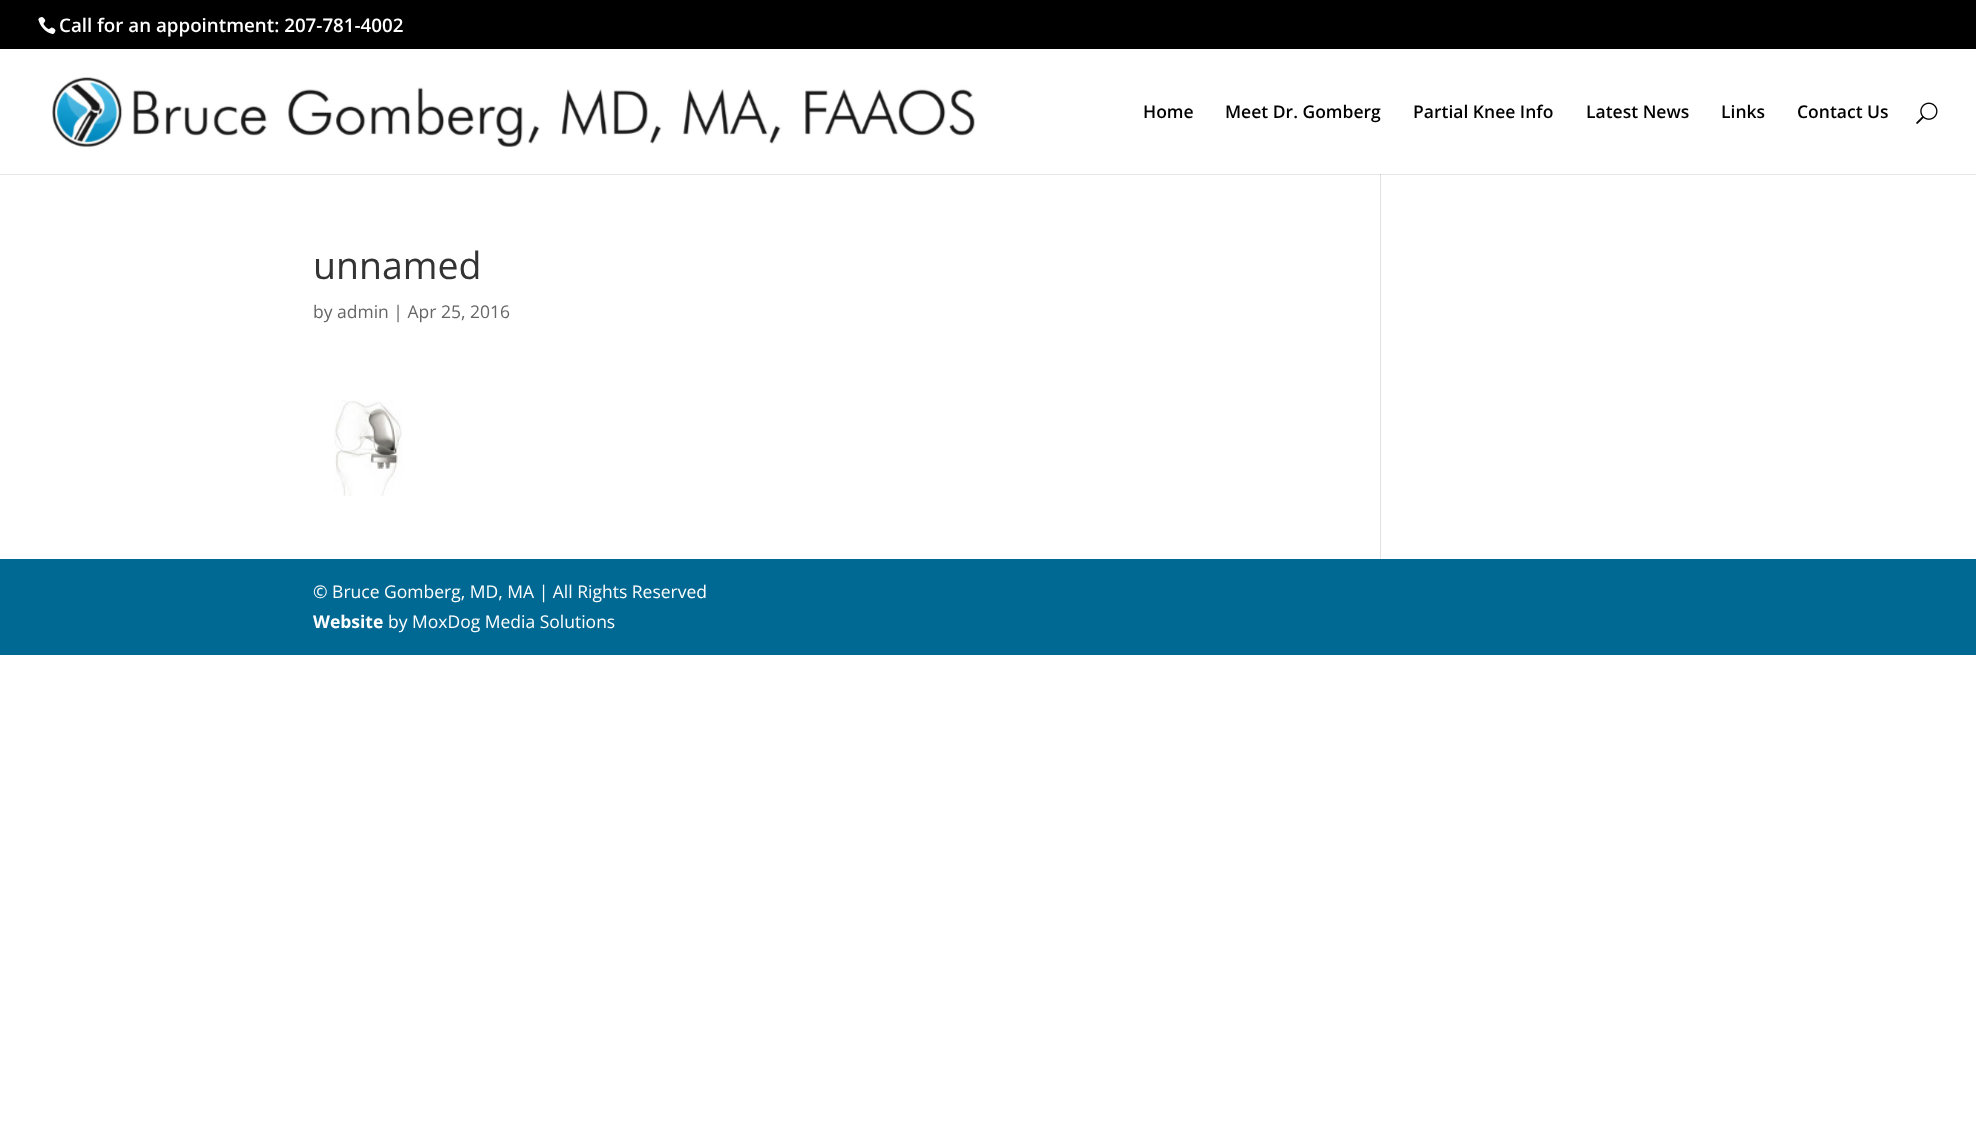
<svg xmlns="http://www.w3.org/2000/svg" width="1976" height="1138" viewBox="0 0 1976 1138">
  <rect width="100%" height="100%" fill="rgb(255,255,255)"/>
  <rect x="0" y="174" width="1976" height="1" fill="rgb(230,230,230)"/>
  <rect x="0" y="0" width="1976" height="49" fill="rgb(0,0,0)"/>
  <image x="38" y="17" width="18" height="18" href="pic1.png"/>
  <text x="59" y="32" font-family="Open Sans" font-size="18.75" font-weight="600" fill="rgb(255,255,255)">Call for an appointment: 207-781-4002</text>
  <image x="52" y="77" width="923" height="70" href="pic2.png"/>
  <g font-family="Open Sans" font-size="17.5" font-weight="600" fill="rgb(0,0,0)">
    <text x="1143" y="118">Home</text>
    <text x="1225" y="118">Meet Dr. Gomberg</text>
    <text x="1413" y="118">Partial Knee Info</text>
    <text x="1586" y="118">Latest News</text>
    <text x="1721" y="118">Links</text>
    <text x="1797" y="118">Contact Us</text>
  </g>
  <image x="1916" y="102" width="22" height="22" href="pic3.png"/>
  <text x="313" y="279" font-family="Open Sans" font-size="37.5" fill="rgb(51,51,51)">unnamed</text>
  <text x="313" y="318" font-family="Open Sans" font-size="17.5" fill="rgb(102,102,102)">by admin | Apr 25, 2016</text>
  <image x="334" y="400" width="69" height="97" href="pic4.png"/>
  <rect x="1380" y="174" width="1" height="385" fill="rgb(226,226,226)"/>
  <rect x="1380" y="174" width="1" height="1" fill="rgb(203,203,203)"/>
  <rect x="0" y="559" width="1976" height="96" fill="rgb(0,105,147)"/>
  <text x="313" y="598" font-family="Open Sans" font-size="17.5" fill="rgb(255,255,255)">© Bruce Gomberg, MD, MA | All Rights Reserved</text>
  <text x="313" y="628" font-family="Open Sans" font-size="17.5" font-weight="bold" fill="rgb(255,255,255)">Website</text>
  <text x="388" y="628" font-family="Open Sans" font-size="17.5" fill="rgb(255,255,255)">by MoxDog Media Solutions</text>
</svg>
